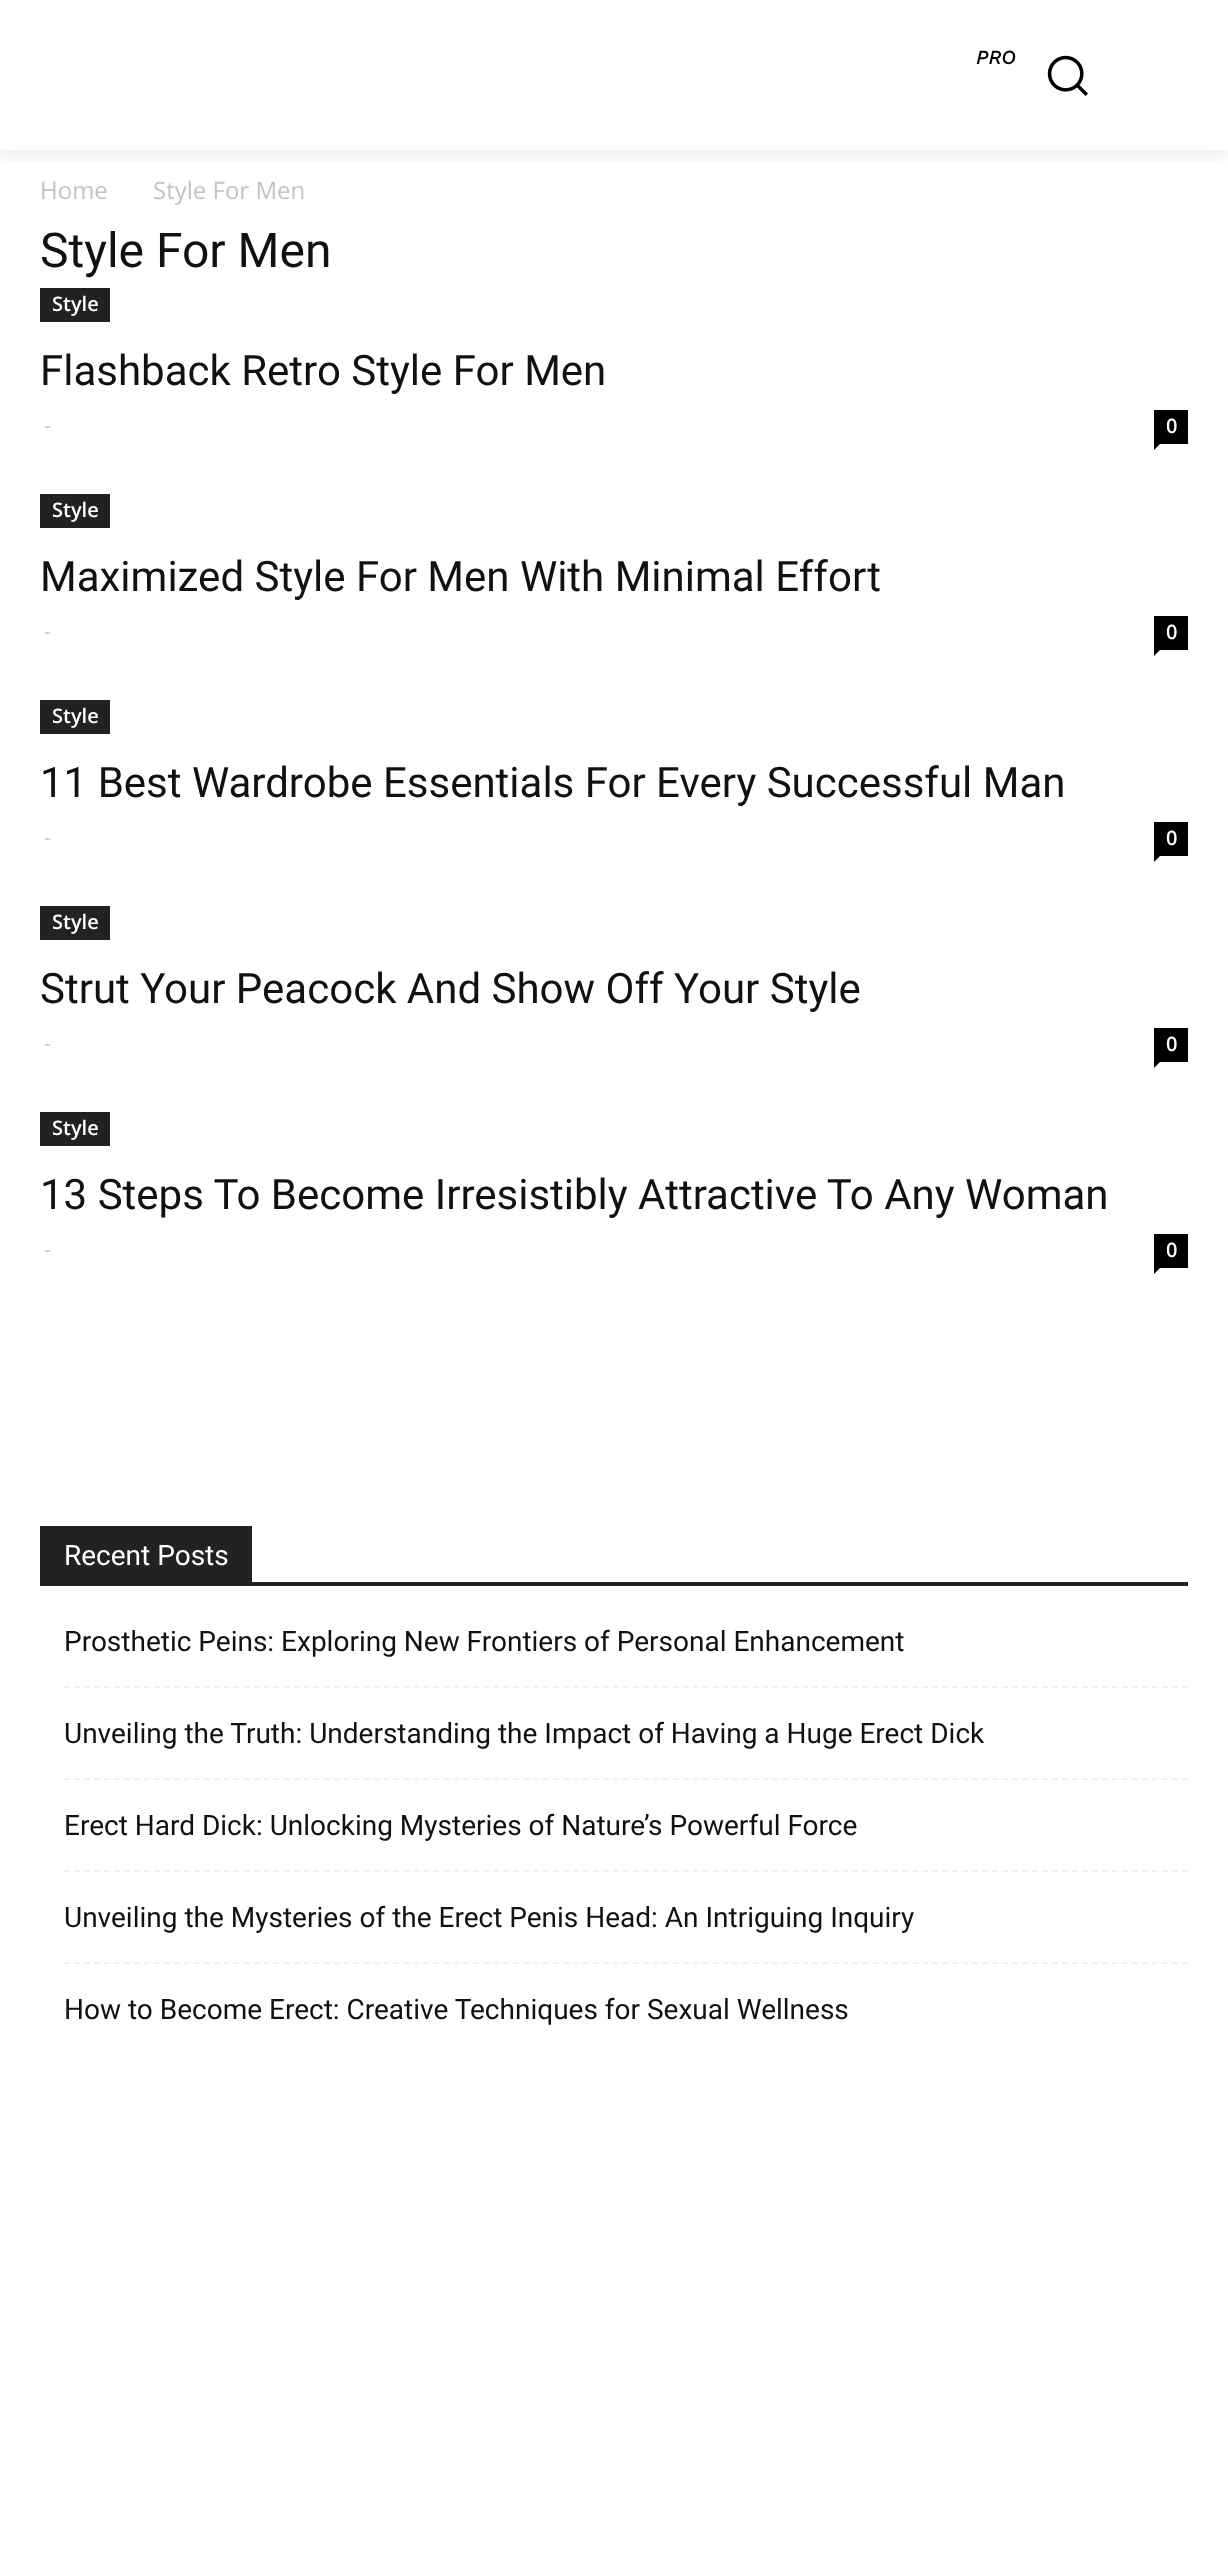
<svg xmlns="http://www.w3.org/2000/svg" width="1228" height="2575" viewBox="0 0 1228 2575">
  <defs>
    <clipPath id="clip1"><rect x="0" y="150" width="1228" height="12"/></clipPath>
  </defs>
  <rect width="100%" height="100%" fill="rgb(255,255,255)"/>
  <image x="1047" y="55" width="41" height="41" href="pic1.png"/>
  <g clip-path="url(#clip1)">
    <rect x="0" y="4" width="1228" height="150" fill="rgba(0,0,0,0.09)" filter="blur(10px)"/>
  </g>
  <text x="976" y="64" font-family="Work Sans" font-size="20" font-weight="500" font-style="italic" fill="rgb(0,0,0)">PRO</text>
  <g font-family="Open Sans" font-size="24" fill="rgb(195,195,195)">
    <text x="40" y="199">Home</text>
    <text x="153" y="199">Style For Men</text>
  </g>
  <text x="40" y="267" font-family="Roboto" font-size="48" fill="rgb(17,17,17)">Style For Men</text>
  <rect x="40" y="288" width="70" height="34" fill="rgb(34,34,34)"/>
  <text x="52" y="311" font-family="Open Sans" font-size="20" font-weight="600" fill="rgb(255,255,255)">Style</text>
  <text x="40" y="385" font-family="Roboto" font-size="42" fill="rgb(17,17,17)">Flashback Retro Style For Men</text>
  <text x="44" y="433" font-family="Open Sans" font-size="22" fill="rgb(204,204,204)">-</text>
  <rect x="1154" y="410" width="34" height="34" fill="rgb(0,0,0)"/>
  <text x="1166" y="433" font-family="Open Sans" font-size="20" font-weight="600" fill="rgb(255,255,255)">0</text>
  <path d="M1154 444H1160L1154 450Z" fill="rgb(0,0,0)"/>
  <rect x="40" y="494" width="70" height="34" fill="rgb(34,34,34)"/>
  <text x="52" y="517" font-family="Open Sans" font-size="20" font-weight="600" fill="rgb(255,255,255)">Style</text>
  <text x="40" y="591" font-family="Roboto" font-size="42" fill="rgb(17,17,17)">Maximized Style For Men With Minimal Effort</text>
  <text x="44" y="639" font-family="Open Sans" font-size="22" fill="rgb(204,204,204)">-</text>
  <rect x="1154" y="616" width="34" height="34" fill="rgb(0,0,0)"/>
  <text x="1166" y="639" font-family="Open Sans" font-size="20" font-weight="600" fill="rgb(255,255,255)">0</text>
  <path d="M1154 650H1160L1154 656Z" fill="rgb(0,0,0)"/>
  <rect x="40" y="700" width="70" height="34" fill="rgb(34,34,34)"/>
  <text x="52" y="723" font-family="Open Sans" font-size="20" font-weight="600" fill="rgb(255,255,255)">Style</text>
  <text x="40" y="797" font-family="Roboto" font-size="42" fill="rgb(17,17,17)">11 Best Wardrobe Essentials For Every Successful Man</text>
  <text x="44" y="845" font-family="Open Sans" font-size="22" fill="rgb(204,204,204)">-</text>
  <rect x="1154" y="822" width="34" height="34" fill="rgb(0,0,0)"/>
  <text x="1166" y="845" font-family="Open Sans" font-size="20" font-weight="600" fill="rgb(255,255,255)">0</text>
  <path d="M1154 856H1160L1154 862Z" fill="rgb(0,0,0)"/>
  <rect x="40" y="906" width="70" height="34" fill="rgb(34,34,34)"/>
  <text x="52" y="929" font-family="Open Sans" font-size="20" font-weight="600" fill="rgb(255,255,255)">Style</text>
  <text x="40" y="1003" font-family="Roboto" font-size="42" fill="rgb(17,17,17)">Strut Your Peacock And Show Off Your Style</text>
  <text x="44" y="1051" font-family="Open Sans" font-size="22" fill="rgb(204,204,204)">-</text>
  <rect x="1154" y="1028" width="34" height="34" fill="rgb(0,0,0)"/>
  <text x="1166" y="1051" font-family="Open Sans" font-size="20" font-weight="600" fill="rgb(255,255,255)">0</text>
  <path d="M1154 1062H1160L1154 1068Z" fill="rgb(0,0,0)"/>
  <rect x="40" y="1112" width="70" height="34" fill="rgb(34,34,34)"/>
  <text x="52" y="1135" font-family="Open Sans" font-size="20" font-weight="600" fill="rgb(255,255,255)">Style</text>
  <text x="40" y="1209" font-family="Roboto" font-size="42" fill="rgb(17,17,17)">13 Steps To Become Irresistibly Attractive To Any Woman</text>
  <text x="44" y="1257" font-family="Open Sans" font-size="22" fill="rgb(204,204,204)">-</text>
  <rect x="1154" y="1234" width="34" height="34" fill="rgb(0,0,0)"/>
  <text x="1166" y="1257" font-family="Open Sans" font-size="20" font-weight="600" fill="rgb(255,255,255)">0</text>
  <path d="M1154 1268H1160L1154 1274Z" fill="rgb(0,0,0)"/>
  <rect x="40" y="1582" width="1148" height="4" fill="rgb(34,34,34)"/>
  <rect x="40" y="1526" width="212" height="56" fill="rgb(34,34,34)"/>
  <text x="64" y="1565" font-family="Roboto" font-size="28" fill="rgb(255,255,255)">Recent Posts</text>
  <path d="M64 1687H1188" fill="none" stroke="rgb(241,241,241)" stroke-width="2" stroke-dasharray="6 3.98"/>
  <text x="64" y="1651" font-family="Roboto" font-size="28" fill="rgb(17,17,17)">Prosthetic Peins: Exploring New Frontiers of Personal Enhancement</text>
  <path d="M64 1779H1188" fill="none" stroke="rgb(241,241,241)" stroke-width="2" stroke-dasharray="6 3.98"/>
  <text x="64" y="1743" font-family="Roboto" font-size="28" fill="rgb(17,17,17)">Unveiling the Truth: Understanding the Impact of Having a Huge Erect Dick</text>
  <path d="M64 1871H1188" fill="none" stroke="rgb(241,241,241)" stroke-width="2" stroke-dasharray="6 3.98"/>
  <text x="64" y="1835" font-family="Roboto" font-size="28" fill="rgb(17,17,17)">Erect Hard Dick: Unlocking Mysteries of Nature’s Powerful Force</text>
  <path d="M64 1963H1188" fill="none" stroke="rgb(241,241,241)" stroke-width="2" stroke-dasharray="6 3.98"/>
  <g font-family="Roboto" font-size="28" fill="rgb(17,17,17)">
    <text x="64" y="1927">Unveiling the Mysteries of the Erect Penis Head: An Intriguing Inquiry</text>
    <text x="64" y="2019">How to Become Erect: Creative Techniques for Sexual Wellness</text>
  </g>
</svg>
